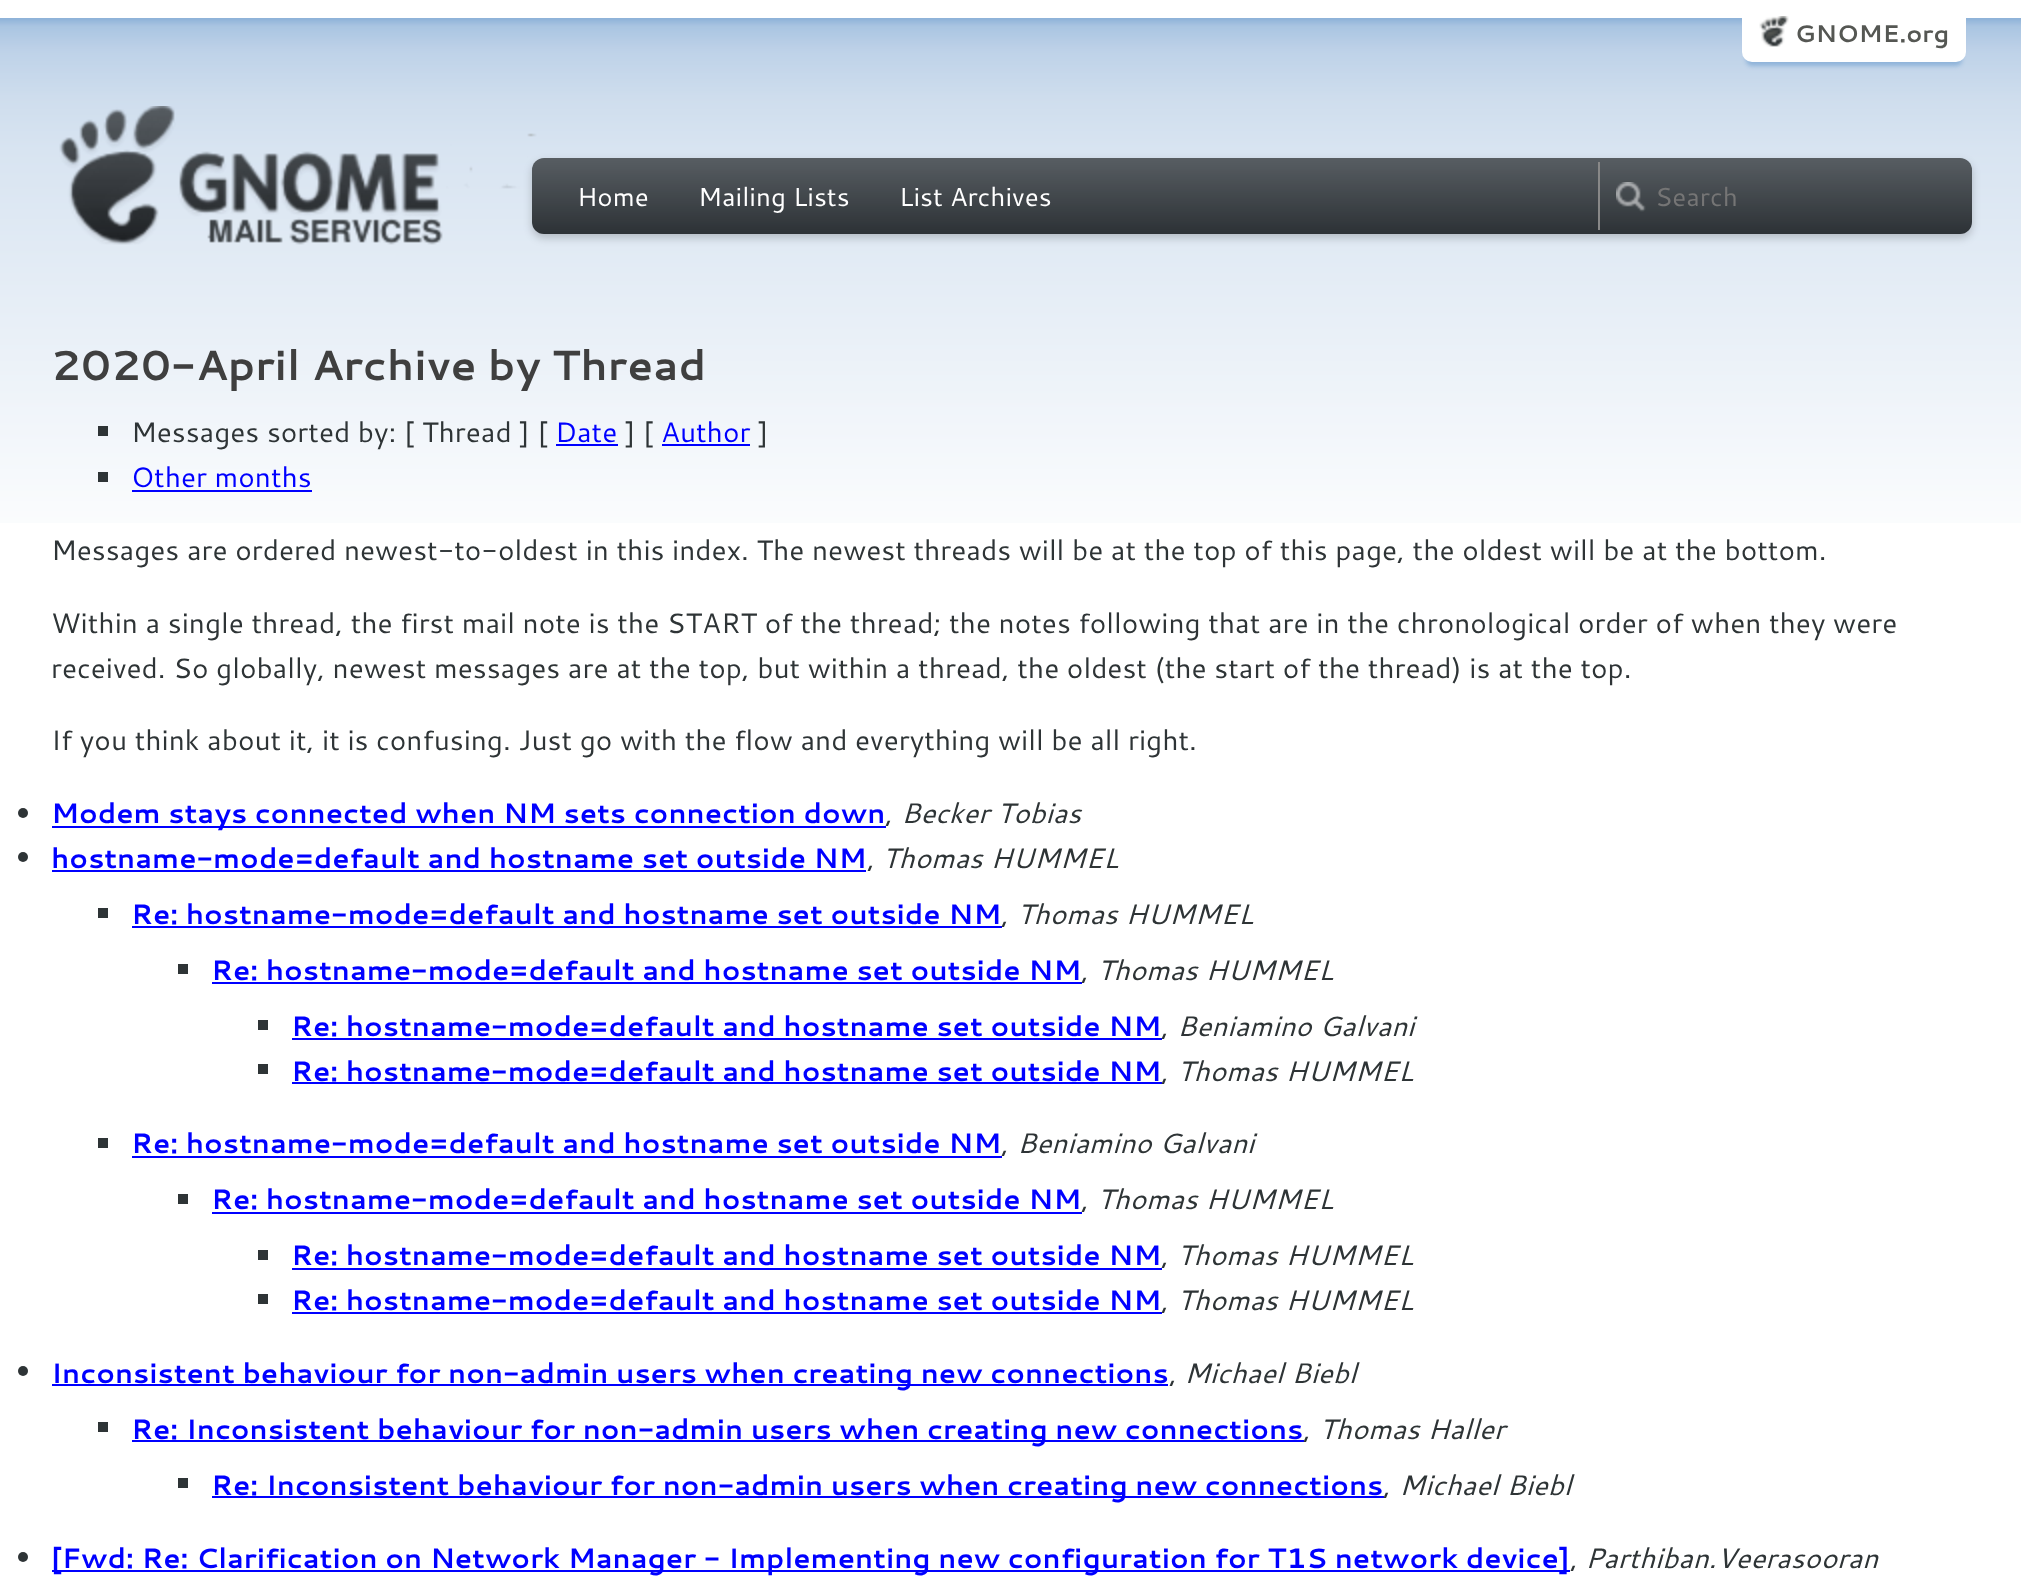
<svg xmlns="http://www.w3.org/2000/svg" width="2021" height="1576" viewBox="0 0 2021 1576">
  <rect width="100%" height="100%" fill="rgb(255,255,255)"/>
  <image x="0" y="18" width="2021" height="505" href="pic1.png"/>
  <rect x="1746" y="18" width="216" height="48" rx="6" fill="rgb(143,179,217)" filter="blur(2px)"/>
  <rect x="1742" y="6" width="224" height="56" rx="10" fill="rgb(255,255,255)"/>
  <image x="1759" y="16" width="30" height="31" href="pic2.png"/>
  <text x="1795" y="42" font-family="Cantarell" font-size="24" font-weight="bold" fill="rgb(85,87,83)">GNOME.org</text>
  <image x="59" y="106" width="478" height="139" href="pic3.png"/>
  <rect x="532" y="162" width="1440" height="76" rx="12" fill="rgba(0,0,0,0.2)" filter="blur(4px)"/>
  <image x="532" y="158" width="1440" height="76" href="pic4.png"/>
  <g font-family="Cantarell" font-size="26" fill="rgb(255,255,255)">
    <text x="577" y="206">Home</text>
    <text x="698" y="206">Mailing Lists</text>
    <text x="899" y="206">List Archives</text>
  </g>
  <image x="1616" y="182" width="30" height="30" href="pic5.png"/>
  <rect x="1598" y="162" width="2" height="68" fill="rgb(136,136,136)"/>
  <text x="1655" y="206" font-family="Cantarell" font-size="26" fill="rgb(117,117,117)">Search</text>
  <text x="51" y="380" font-family="Cantarell" font-size="42" font-weight="bold" fill="rgb(63,63,63)">2020-April Archive by Thread</text>
  <rect x="98" y="426" width="10" height="10" fill="rgb(46,52,54)"/>
  <text x="131" y="442" font-family="Cantarell" font-size="28" fill="rgb(46,52,54)">Messages sorted by: [ Thread ] [</text>
  <text x="555" y="442" font-family="Cantarell" font-size="28" fill="rgb(0,0,255)">Date</text>
  <rect x="556" y="444" width="62" height="2" fill="rgb(0,0,255)"/>
  <text x="625" y="442" font-family="Cantarell" font-size="28" fill="rgb(46,52,54)">] [</text>
  <text x="661" y="442" font-family="Cantarell" font-size="28" fill="rgb(0,0,255)">Author</text>
  <rect x="662" y="444" width="88" height="2" fill="rgb(0,0,255)"/>
  <text x="758" y="442" font-family="Cantarell" font-size="28" fill="rgb(46,52,54)">]</text>
  <rect x="98" y="472" width="10" height="10" fill="rgb(46,52,54)"/>
  <text x="131" y="487" font-family="Cantarell" font-size="28" fill="rgb(0,0,255)">Other months</text>
  <rect x="132" y="490" width="180" height="2" fill="rgb(0,0,255)"/>
  <g font-family="Cantarell" font-size="28" fill="rgb(46,52,54)">
    <text x="51" y="560">Messages are ordered newest-to-oldest in this index. The newest threads will be at the top of this page, the oldest will be at the bottom.</text>
    <text>
      <tspan x="51" y="633">Within a single thread, the first mail note is the START of the thread; the notes following that are in the chronological order of when they were</tspan>
      <tspan x="51" y="678">received. So globally, newest messages are at the top, but within a thread, the oldest (the start of the thread) is at the top.</tspan>
    </text>
    <text x="51" y="750">If you think about it, it is confusing. Just go with the flow and everything will be all right.</text>
  </g>
  <circle cx="23" cy="813" r="5" fill="rgb(46,52,54)"/>
  <rect x="52" y="826" width="834" height="2" fill="rgb(0,0,255)"/>
  <text x="51" y="823" font-family="Cantarell" font-size="28" font-weight="bold" fill="rgb(0,0,255)">Modem stays connected when NM sets connection down</text>
  <text x="901" y="823" font-family="Cantarell" font-size="28" font-style="italic" fill="rgb(46,52,54)">Becker Tobias</text>
  <text x="885" y="823" font-family="Cantarell" font-size="28" fill="rgb(46,52,54)">,</text>
  <circle cx="23" cy="857" r="5" fill="rgb(46,52,54)"/>
  <text x="51" y="868" font-family="Cantarell" font-size="28" font-weight="bold" fill="rgb(0,0,255)">hostname-mode=default and hostname set outside NM</text>
  <rect x="52" y="870" width="814" height="2" fill="rgb(0,0,255)"/>
  <text x="882" y="868" font-family="Cantarell" font-size="28" font-style="italic" fill="rgb(46,52,54)">Thomas HUMMEL</text>
  <text x="867" y="868" font-family="Cantarell" font-size="28" fill="rgb(46,52,54)">,</text>
  <rect x="98" y="908" width="10" height="10" fill="rgb(46,52,54)"/>
  <text x="131" y="924" font-family="Cantarell" font-size="28" font-weight="bold" fill="rgb(0,0,255)">Re: hostname-mode=default and hostname set outside NM</text>
  <rect x="132" y="926" width="870" height="2" fill="rgb(0,0,255)"/>
  <text x="1017" y="924" font-family="Cantarell" font-size="28" font-style="italic" fill="rgb(46,52,54)">Thomas HUMMEL</text>
  <text x="1001" y="924" font-family="Cantarell" font-size="28" fill="rgb(46,52,54)">,</text>
  <rect x="178" y="964" width="10" height="10" fill="rgb(46,52,54)"/>
  <text x="211" y="980" font-family="Cantarell" font-size="28" font-weight="bold" fill="rgb(0,0,255)">Re: hostname-mode=default and hostname set outside NM</text>
  <rect x="212" y="982" width="870" height="2" fill="rgb(0,0,255)"/>
  <text x="1097" y="980" font-family="Cantarell" font-size="28" font-style="italic" fill="rgb(46,52,54)">Thomas HUMMEL</text>
  <text x="1081" y="980" font-family="Cantarell" font-size="28" fill="rgb(46,52,54)">,</text>
  <rect x="258" y="1020" width="10" height="10" fill="rgb(46,52,54)"/>
  <text x="291" y="1036" font-family="Cantarell" font-size="28" font-weight="bold" fill="rgb(0,0,255)">Re: hostname-mode=default and hostname set outside NM</text>
  <rect x="292" y="1038" width="870" height="2" fill="rgb(0,0,255)"/>
  <text x="1177" y="1036" font-family="Cantarell" font-size="28" font-style="italic" fill="rgb(46,52,54)">Beniamino Galvani</text>
  <text x="1161" y="1036" font-family="Cantarell" font-size="28" fill="rgb(46,52,54)">,</text>
  <rect x="258" y="1064" width="10" height="10" fill="rgb(46,52,54)"/>
  <text x="291" y="1081" font-family="Cantarell" font-size="28" font-weight="bold" fill="rgb(0,0,255)">Re: hostname-mode=default and hostname set outside NM</text>
  <rect x="292" y="1082" width="870" height="2" fill="rgb(0,0,255)"/>
  <text x="1177" y="1081" font-family="Cantarell" font-size="28" font-style="italic" fill="rgb(46,52,54)">Thomas HUMMEL</text>
  <text x="1161" y="1081" font-family="Cantarell" font-size="28" fill="rgb(46,52,54)">,</text>
  <rect x="98" y="1138" width="10" height="10" fill="rgb(46,52,54)"/>
  <text x="131" y="1153" font-family="Cantarell" font-size="28" font-weight="bold" fill="rgb(0,0,255)">Re: hostname-mode=default and hostname set outside NM</text>
  <rect x="132" y="1156" width="870" height="2" fill="rgb(0,0,255)"/>
  <text x="1017" y="1153" font-family="Cantarell" font-size="28" font-style="italic" fill="rgb(46,52,54)">Beniamino Galvani</text>
  <text x="1001" y="1153" font-family="Cantarell" font-size="28" fill="rgb(46,52,54)">,</text>
  <rect x="178" y="1194" width="10" height="10" fill="rgb(46,52,54)"/>
  <text x="211" y="1209" font-family="Cantarell" font-size="28" font-weight="bold" fill="rgb(0,0,255)">Re: hostname-mode=default and hostname set outside NM</text>
  <rect x="212" y="1212" width="870" height="2" fill="rgb(0,0,255)"/>
  <text x="1097" y="1209" font-family="Cantarell" font-size="28" font-style="italic" fill="rgb(46,52,54)">Thomas HUMMEL</text>
  <text x="1081" y="1209" font-family="Cantarell" font-size="28" fill="rgb(46,52,54)">,</text>
  <rect x="258" y="1250" width="10" height="10" fill="rgb(46,52,54)"/>
  <text x="291" y="1265" font-family="Cantarell" font-size="28" font-weight="bold" fill="rgb(0,0,255)">Re: hostname-mode=default and hostname set outside NM</text>
  <rect x="292" y="1268" width="870" height="2" fill="rgb(0,0,255)"/>
  <text x="1177" y="1265" font-family="Cantarell" font-size="28" font-style="italic" fill="rgb(46,52,54)">Thomas HUMMEL</text>
  <text x="1161" y="1265" font-family="Cantarell" font-size="28" fill="rgb(46,52,54)">,</text>
  <rect x="258" y="1294" width="10" height="10" fill="rgb(46,52,54)"/>
  <text x="291" y="1310" font-family="Cantarell" font-size="28" font-weight="bold" fill="rgb(0,0,255)">Re: hostname-mode=default and hostname set outside NM</text>
  <rect x="292" y="1312" width="870" height="2" fill="rgb(0,0,255)"/>
  <text x="1177" y="1310" font-family="Cantarell" font-size="28" font-style="italic" fill="rgb(46,52,54)">Thomas HUMMEL</text>
  <text x="1161" y="1310" font-family="Cantarell" font-size="28" fill="rgb(46,52,54)">,</text>
  <circle cx="23" cy="1371" r="5" fill="rgb(46,52,54)"/>
  <rect x="52" y="1384" width="1116" height="2" fill="rgb(0,0,255)"/>
  <text x="51" y="1383" font-family="Cantarell" font-size="28" font-weight="bold" fill="rgb(0,0,255)">Inconsistent behaviour for non-admin users when creating new connections</text>
  <text x="1184" y="1383" font-family="Cantarell" font-size="28" font-style="italic" fill="rgb(46,52,54)">Michael Biebl</text>
  <text x="1169" y="1383" font-family="Cantarell" font-size="28" fill="rgb(46,52,54)">,</text>
  <rect x="98" y="1422" width="10" height="10" fill="rgb(46,52,54)"/>
  <rect x="132" y="1440" width="1172" height="2" fill="rgb(0,0,255)"/>
  <text x="131" y="1439" font-family="Cantarell" font-size="28" font-weight="bold" fill="rgb(0,0,255)">Re: Inconsistent behaviour for non-admin users when creating new connections</text>
  <text x="1319" y="1439" font-family="Cantarell" font-size="28" font-style="italic" fill="rgb(46,52,54)">Thomas Haller</text>
  <text x="1303" y="1439" font-family="Cantarell" font-size="28" fill="rgb(46,52,54)">,</text>
  <rect x="178" y="1478" width="10" height="10" fill="rgb(46,52,54)"/>
  <rect x="212" y="1496" width="1172" height="2" fill="rgb(0,0,255)"/>
  <text x="211" y="1495" font-family="Cantarell" font-size="28" font-weight="bold" fill="rgb(0,0,255)">Re: Inconsistent behaviour for non-admin users when creating new connections</text>
  <text x="1399" y="1495" font-family="Cantarell" font-size="28" font-style="italic" fill="rgb(46,52,54)">Michael Biebl</text>
  <text x="1383" y="1495" font-family="Cantarell" font-size="28" fill="rgb(46,52,54)">,</text>
  <circle cx="23" cy="1557" r="5" fill="rgb(46,52,54)"/>
  <rect x="52" y="1570" width="1518" height="2" fill="rgb(0,0,255)"/>
  <text x="51" y="1568" font-family="Cantarell" font-size="28" font-weight="bold" fill="rgb(0,0,255)">[Fwd: Re: Clarification on Network Manager - Implementing new configuration for T1S network device]</text>
  <text x="1585" y="1568" font-family="Cantarell" font-size="28" font-style="italic" fill="rgb(46,52,54)">Parthiban.Veerasooran</text>
  <text x="1570" y="1568" font-family="Cantarell" font-size="28" fill="rgb(46,52,54)">,</text>
</svg>
